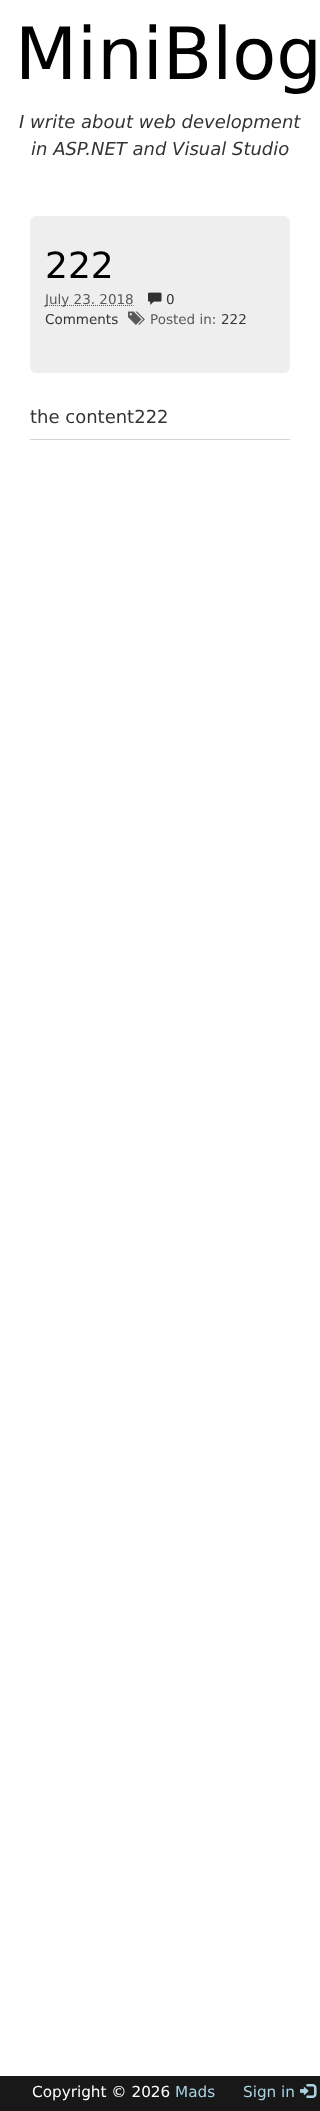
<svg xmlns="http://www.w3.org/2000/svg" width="320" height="2111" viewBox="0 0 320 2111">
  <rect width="100%" height="100%" fill="rgb(255,255,255)"/>
  <text x="15" y="79" font-family="DejaVu Sans" font-size="72" fill="rgb(0,0,0)">MiniBlog</text>
  <g font-family="DejaVu Sans" font-size="18" font-style="italic" fill="rgb(51,51,51)">
    <text x="19" y="128">I write about web development</text>
    <text x="31" y="155">in ASP.NET and Visual Studio</text>
  </g>
  <rect x="30" y="216" width="260" height="157" rx="6" fill="rgb(238,238,238)"/>
  <text x="45" y="278" font-family="DejaVu Sans" font-size="36" fill="rgb(0,0,0)">222</text>
  <path d="M45 305.5H133.5" fill="none" stroke="rgb(88,88,88)" stroke-dasharray="1 1"/>
  <text x="45" y="304" font-family="DejaVu Sans" font-size="13.5" fill="rgb(88,88,88)">July 23. 2018</text>
  <image x="148" y="292" width="14" height="13" href="pic1.png"/>
  <g font-family="DejaVu Sans" font-size="13.5" fill="rgb(51,51,51)">
    <text x="166" y="304">0</text>
    <text x="45" y="324">Comments</text>
  </g>
  <image x="128" y="311" width="17" height="14" href="pic2.png"/>
  <text x="150" y="324" font-family="DejaVu Sans" font-size="13.5" fill="rgb(88,88,88)">Posted in:</text>
  <text x="221" y="324" font-family="DejaVu Sans" font-size="13.5" fill="rgb(51,51,51)">222</text>
  <rect x="30" y="439" width="260" height="1" fill="rgb(211,211,211)"/>
  <text x="30" y="423" font-family="DejaVu Sans" font-size="18" fill="rgb(51,51,51)">the content222</text>
  <rect x="0" y="2076" width="320" height="35" fill="rgb(24,24,24)"/>
  <text x="32" y="2097" font-family="DejaVu Sans" font-size="15.25" fill="rgb(255,255,255)">Copyright © 2026</text>
  <g font-family="DejaVu Sans" font-size="15.25" fill="rgb(169,210,225)">
    <text x="175" y="2097">Mads</text>
    <text x="243" y="2097">Sign in</text>
  </g>
  <image x="300" y="2084" width="17" height="14" href="pic3.png"/>
</svg>
